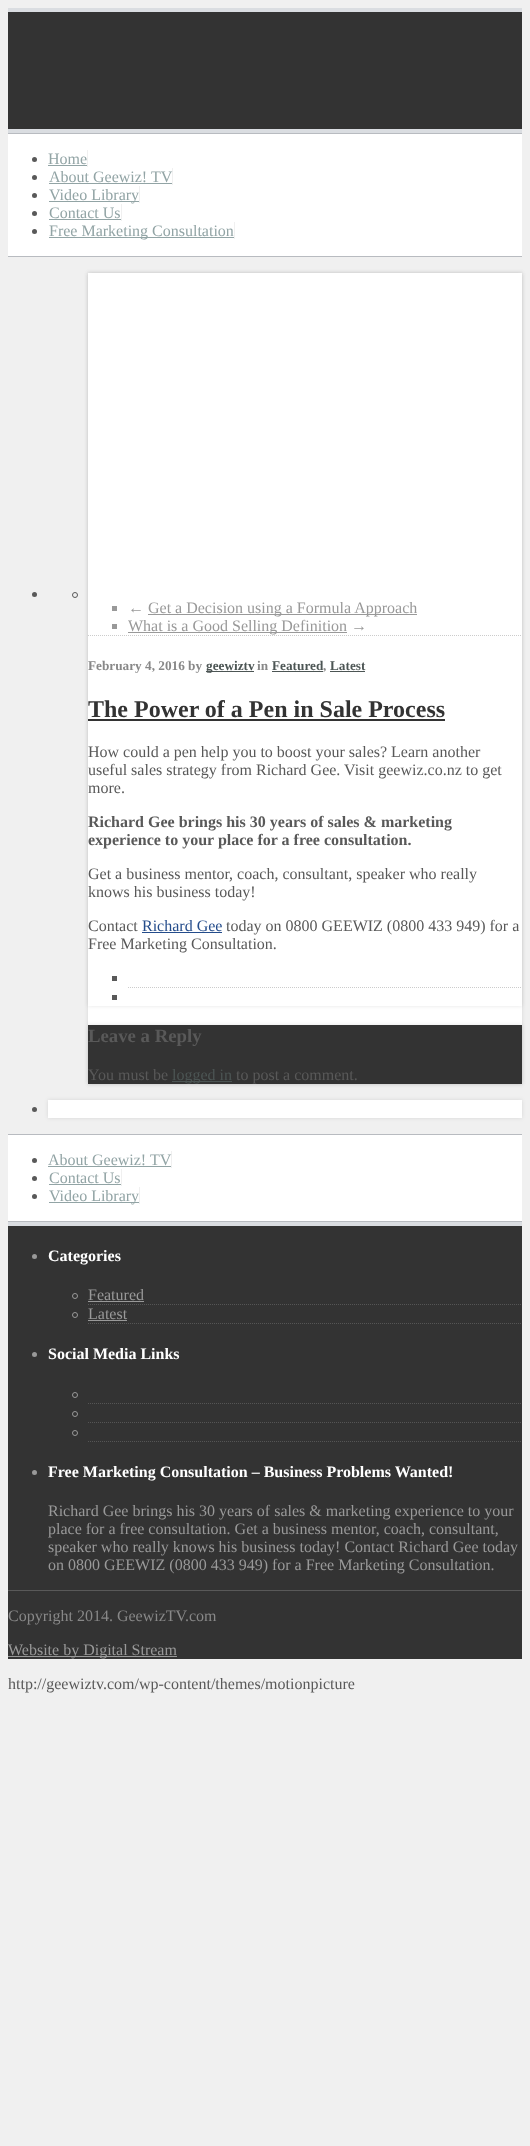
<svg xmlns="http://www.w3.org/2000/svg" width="530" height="2146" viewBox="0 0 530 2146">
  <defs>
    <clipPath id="clip1"><path d="M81 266H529V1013H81ZM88 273H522V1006H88Z" clip-rule="evenodd"/></clipPath>
  </defs>
  <rect width="100%" height="100%" fill="rgb(240,240,240)"/>
  <rect x="8" y="12" width="514" height="117" fill="rgb(51,51,51)"/>
  <rect x="8" y="8" width="514" height="4" fill="rgb(218,221,225)"/>
  <rect x="8" y="129" width="514" height="4" fill="rgb(218,221,225)"/>
  <rect x="8" y="134" width="514" height="122" fill="rgb(255,255,255)"/>
  <rect x="8" y="133" width="514" height="1" fill="rgb(184,187,192)"/>
  <rect x="8" y="256" width="514" height="1" fill="rgb(184,187,192)"/>
  <circle cx="34.5" cy="159.5" r="2.5" fill="rgb(89,89,89)"/>
  <text x="48" y="164" font-family="Liberation Serif" font-size="16" fill="rgb(146,164,165)">Home</text>
  <rect x="87" y="150" width="1" height="17" fill="rgb(240,240,240)"/>
  <rect x="48" y="165" width="39" height="1" fill="rgb(146,164,165)"/>
  <circle cx="34.5" cy="177.5" r="2.5" fill="rgb(89,89,89)"/>
  <rect x="172" y="168" width="1" height="17" fill="rgb(240,240,240)"/>
  <text x="49" y="182" font-family="Liberation Serif" font-size="16" fill="rgb(146,164,165)">About Geewiz! TV</text>
  <rect x="49" y="183" width="123" height="1" fill="rgb(146,164,165)"/>
  <circle cx="34.5" cy="195.5" r="2.5" fill="rgb(89,89,89)"/>
  <rect x="139" y="186" width="1" height="17" fill="rgb(240,240,240)"/>
  <rect x="49" y="201" width="90" height="1" fill="rgb(146,164,165)"/>
  <text x="49" y="200" font-family="Liberation Serif" font-size="16" fill="rgb(146,164,165)">Video Library</text>
  <circle cx="34.5" cy="213.5" r="2.5" fill="rgb(89,89,89)"/>
  <text x="49" y="218" font-family="Liberation Serif" font-size="16" fill="rgb(146,164,165)">Contact Us</text>
  <rect x="121" y="204" width="1" height="17" fill="rgb(240,240,240)"/>
  <rect x="49" y="219" width="72" height="1" fill="rgb(146,164,165)"/>
  <circle cx="34.5" cy="231.5" r="2.5" fill="rgb(89,89,89)"/>
  <rect x="49" y="237" width="185" height="1" fill="rgb(146,164,165)"/>
  <text x="49" y="236" font-family="Liberation Serif" font-size="16" fill="rgb(146,164,165)">Free Marketing Consultation</text>
  <rect x="234" y="222" width="1" height="17" fill="rgb(240,240,240)"/>
  <circle cx="34.5" cy="594.5" r="2.5" fill="rgb(89,89,89)"/>
  <rect x="88" y="273" width="434" height="811" fill="rgba(0,0,0,0.1)" filter="blur(2px)"/>
  <rect x="88" y="273" width="434" height="752" fill="rgb(255,255,255)"/>
  <circle cx="75" cy="595" r="2.5" fill="none" stroke="rgb(89,89,89)"/>
  <g clip-path="url(#clip1)">
    <rect x="88" y="273" width="434" height="733" fill="rgba(0,0,0,0.1)" filter="blur(2px)"/>
  </g>
  <path d="M88 635.5H522" fill="none" stroke="rgb(204,204,204)" stroke-dasharray="1 1"/>
  <rect x="112" y="606" width="5" height="5" fill="rgb(153,153,153)"/>
  <text x="128" y="613" font-family="Liberation Serif" font-size="16" fill="rgb(153,153,153)">←</text>
  <rect x="148" y="614" width="269" height="1" fill="rgb(153,153,153)"/>
  <text x="148" y="613" font-family="Liberation Serif" font-size="16" fill="rgb(153,153,153)">Get a Decision using a Formula Approach</text>
  <rect x="112" y="624" width="5" height="5" fill="rgb(153,153,153)"/>
  <rect x="128" y="632" width="219" height="1" fill="rgb(153,153,153)"/>
  <text x="128" y="631" font-family="Liberation Serif" font-size="16" fill="rgb(153,153,153)">What is a Good Selling Definition →</text>
  <text x="88" y="670" font-family="Liberation Serif" font-size="13.25" font-weight="bold" fill="rgb(136,136,136)">February 4, 2016 by</text>
  <rect x="206" y="671" width="48" height="1" fill="rgb(76,85,84)"/>
  <text x="206" y="670" font-family="Liberation Serif" font-size="13.25" font-weight="bold" fill="rgb(76,85,84)">geewiztv</text>
  <text x="257" y="670" font-family="Liberation Serif" font-size="13.25" font-weight="bold" fill="rgb(136,136,136)">in</text>
  <text x="272" y="670" font-family="Liberation Serif" font-size="13.25" font-weight="bold" fill="rgb(76,85,84)">Featured</text>
  <rect x="272" y="671" width="51" height="1" fill="rgb(76,85,84)"/>
  <text x="323" y="670" font-family="Liberation Serif" font-size="13.25" font-weight="bold" fill="rgb(136,136,136)">,</text>
  <text x="330" y="670" font-family="Liberation Serif" font-size="13.25" font-weight="bold" fill="rgb(76,85,84)">Latest</text>
  <rect x="330" y="671" width="35" height="1" fill="rgb(76,85,84)"/>
  <text x="88" y="717" font-family="Liberation Serif" font-size="24" font-weight="bold" fill="rgb(51,51,51)">The Power of a Pen in Sale Process</text>
  <rect x="88" y="719" width="357" height="2" fill="rgb(51,51,51)"/>
  <g font-family="Liberation Serif" font-size="16" fill="rgb(89,89,89)">
    <text>
      <tspan x="88" y="757">How could a pen help you to boost your sales? Learn another</tspan>
      <tspan x="88" y="775">useful sales strategy from Richard Gee. Visit geewiz.co.nz to get</tspan>
      <tspan x="88" y="793">more.</tspan>
    </text>
  </g>
  <g font-family="Liberation Serif" font-size="16" font-weight="bold" fill="rgb(89,89,89)">
    <text>
      <tspan x="88" y="827">Richard Gee brings his 30 years of sales &amp; marketing</tspan>
      <tspan x="88" y="845">experience to your place for a free consultation.</tspan>
    </text>
  </g>
  <g font-family="Liberation Serif" font-size="16" fill="rgb(89,89,89)">
    <text>
      <tspan x="88" y="879">Get a business mentor, coach, consultant, speaker who really</tspan>
      <tspan x="88" y="897">knows his business today!</tspan>
    </text>
    <text x="88" y="931">Contact</text>
  </g>
  <text x="142" y="931" font-family="Liberation Serif" font-size="16" fill="rgb(36,76,139)">Richard Gee</text>
  <rect x="142" y="932" width="80" height="1" fill="rgb(36,76,139)"/>
  <g font-family="Liberation Serif" font-size="16" fill="rgb(89,89,89)">
    <text x="226" y="931">today on 0800 GEEWIZ (0800 433 949) for a</text>
    <text x="88" y="949">Free Marketing Consultation.</text>
  </g>
  <path d="M128 987.5H522" fill="none" stroke="rgb(204,204,204)" stroke-dasharray="1 1"/>
  <rect x="112" y="976" width="5" height="5" fill="rgb(89,89,89)"/>
  <rect x="112" y="995" width="5" height="5" fill="rgb(89,89,89)"/>
  <rect x="88" y="1025" width="434" height="59" fill="rgba(0,0,0,0.1)" filter="blur(2px)"/>
  <rect x="88" y="1025" width="434" height="59" fill="rgb(51,51,51)"/>
  <text x="88" y="1042" font-family="Liberation Serif" font-size="18.75" font-weight="bold" fill="rgb(89,89,89)">Leave a Reply</text>
  <text x="88" y="1080" font-family="Liberation Serif" font-size="16" fill="rgb(89,89,89)">You must be</text>
  <rect x="172" y="1081" width="60" height="1" fill="rgb(76,85,84)"/>
  <text x="172" y="1080" font-family="Liberation Serif" font-size="16" fill="rgb(76,85,84)">logged in</text>
  <text x="236" y="1080" font-family="Liberation Serif" font-size="16" fill="rgb(89,89,89)">to post a comment.</text>
  <rect x="48" y="1100" width="474" height="18" fill="rgba(0,0,0,0.1)" filter="blur(2px)"/>
  <rect x="48" y="1100" width="474" height="18" fill="rgb(255,255,255)"/>
  <circle cx="34.5" cy="1109.5" r="2.5" fill="rgb(89,89,89)"/>
  <rect x="8" y="1135" width="514" height="86" fill="rgb(255,255,255)"/>
  <rect x="8" y="1134" width="514" height="1" fill="rgb(184,187,192)"/>
  <rect x="8" y="1221" width="514" height="1" fill="rgb(184,187,192)"/>
  <circle cx="34.5" cy="1160.5" r="2.5" fill="rgb(89,89,89)"/>
  <rect x="171" y="1151" width="1" height="17" fill="rgb(240,240,240)"/>
  <text x="48" y="1165" font-family="Liberation Serif" font-size="16" fill="rgb(146,164,165)">About Geewiz! TV</text>
  <rect x="48" y="1166" width="123" height="1" fill="rgb(146,164,165)"/>
  <circle cx="34.5" cy="1178.5" r="2.5" fill="rgb(89,89,89)"/>
  <text x="49" y="1183" font-family="Liberation Serif" font-size="16" fill="rgb(146,164,165)">Contact Us</text>
  <rect x="121" y="1169" width="1" height="17" fill="rgb(240,240,240)"/>
  <rect x="49" y="1184" width="72" height="1" fill="rgb(146,164,165)"/>
  <circle cx="34.5" cy="1196.5" r="2.5" fill="rgb(89,89,89)"/>
  <rect x="139" y="1187" width="1" height="17" fill="rgb(240,240,240)"/>
  <rect x="49" y="1202" width="90" height="1" fill="rgb(146,164,165)"/>
  <text x="49" y="1201" font-family="Liberation Serif" font-size="16" fill="rgb(146,164,165)">Video Library</text>
  <rect x="8" y="1226" width="514" height="433" fill="rgb(51,51,51)"/>
  <rect x="8" y="1222" width="514" height="4" fill="rgb(218,221,225)"/>
  <circle cx="34.5" cy="1256.5" r="2.5" fill="rgb(153,153,153)"/>
  <text x="48" y="1261" font-family="Liberation Serif" font-size="16" font-weight="bold" fill="rgb(255,255,255)">Categories</text>
  <path d="M88 1304.5H522" fill="none" stroke="rgb(85,85,85)" stroke-dasharray="1 1"/>
  <circle cx="75" cy="1296" r="2.5" fill="none" stroke="rgb(153,153,153)"/>
  <text x="88" y="1300" font-family="Liberation Serif" font-size="16" fill="rgb(153,153,153)">Featured</text>
  <rect x="88" y="1301" width="56" height="1" fill="rgb(153,153,153)"/>
  <path d="M88 1323.5H522" fill="none" stroke="rgb(85,85,85)" stroke-dasharray="1 1"/>
  <circle cx="75" cy="1315" r="2.5" fill="none" stroke="rgb(153,153,153)"/>
  <text x="88" y="1319" font-family="Liberation Serif" font-size="16" fill="rgb(153,153,153)">Latest</text>
  <rect x="88" y="1320" width="39" height="1" fill="rgb(153,153,153)"/>
  <circle cx="34.5" cy="1354.5" r="2.5" fill="rgb(153,153,153)"/>
  <text x="48" y="1359" font-family="Liberation Serif" font-size="16" font-weight="bold" fill="rgb(255,255,255)">Social Media Links</text>
  <path d="M88 1403.5H522" fill="none" stroke="rgb(85,85,85)" stroke-dasharray="1 1"/>
  <circle cx="75" cy="1395" r="2.5" fill="none" stroke="rgb(153,153,153)"/>
  <path d="M88 1422.5H522" fill="none" stroke="rgb(85,85,85)" stroke-dasharray="1 1"/>
  <circle cx="75" cy="1414" r="2.5" fill="none" stroke="rgb(153,153,153)"/>
  <path d="M88 1441.5H522" fill="none" stroke="rgb(85,85,85)" stroke-dasharray="1 1"/>
  <circle cx="75" cy="1433" r="2.5" fill="none" stroke="rgb(153,153,153)"/>
  <circle cx="34.5" cy="1472.5" r="2.5" fill="rgb(153,153,153)"/>
  <text x="48" y="1477" font-family="Liberation Serif" font-size="16" font-weight="bold" fill="rgb(255,255,255)">Free Marketing Consultation – Business Problems Wanted!</text>
  <g font-family="Liberation Serif" font-size="16" fill="rgb(153,153,153)">
    <text>
      <tspan x="48" y="1516">Richard Gee brings his 30 years of sales &amp; marketing experience to your</tspan>
      <tspan x="48" y="1534">place for a free consultation. Get a business mentor, coach, consultant,</tspan>
      <tspan x="48" y="1552">speaker who really knows his business today! Contact Richard Gee today</tspan>
      <tspan x="48" y="1570">on 0800 GEEWIZ (0800 433 949) for a Free Marketing Consultation.</tspan>
    </text>
  </g>
  <rect x="8" y="1590" width="514" height="1" fill="rgb(89,89,89)"/>
  <text x="8" y="1621" font-family="Liberation Serif" font-size="16" fill="rgb(136,136,136)">Copyright 2014. GeewizTV.com</text>
  <rect x="8" y="1656" width="169" height="1" fill="rgb(153,153,153)"/>
  <text x="8" y="1655" font-family="Liberation Serif" font-size="16" fill="rgb(153,153,153)">Website by Digital Stream</text>
  <text x="8" y="1689" font-family="Liberation Serif" font-size="16" fill="rgb(89,89,89)">http://geewiztv.com/wp-content/themes/motionpicture</text>
</svg>
